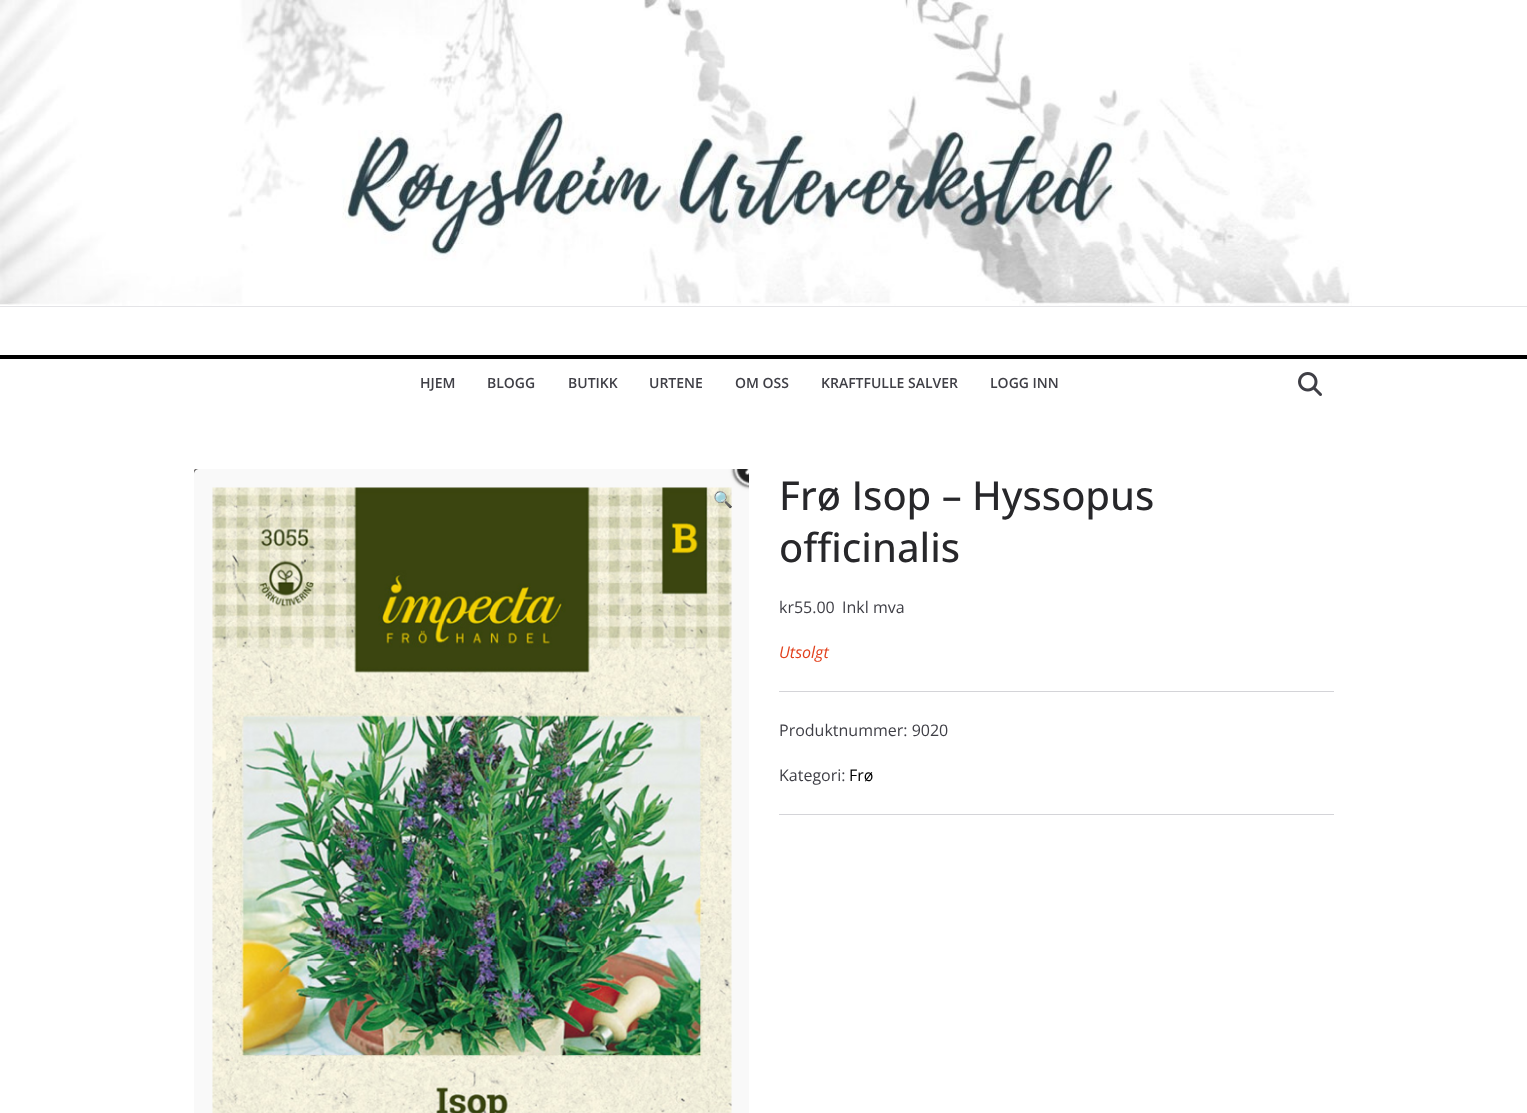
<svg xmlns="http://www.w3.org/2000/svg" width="1527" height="1113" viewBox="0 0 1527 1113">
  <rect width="100%" height="100%" fill="rgb(255,255,255)"/>
  <image x="0" y="0" width="1352" height="306" href="pic1.png"/>
  <rect x="0" y="306" width="1527" height="1" fill="rgb(228,228,231)"/>
  <rect x="0" y="355" width="1527" height="4" fill="rgb(0,0,0)"/>
  <g font-family="Open Sans" font-size="14" font-weight="600" fill="rgb(63,63,70)">
    <text x="420" y="388">HJEM</text>
    <text x="487" y="388">BLOGG</text>
    <text x="568" y="388">BUTIKK</text>
    <text x="649" y="388">URTENE</text>
    <text x="735" y="388">OM OSS</text>
    <text x="821" y="388">KRAFTFULLE SALVER</text>
    <text x="990" y="388">LOGG INN</text>
  </g>
  <image x="1298" y="372" width="24" height="24" href="pic2.png"/>
  <image x="194" y="469" width="555" height="644" href="pic3.png"/>
  <text x="713" y="505" font-family="Noto Color Emoji" font-size="16" fill="rgb(0,0,0)">🔍</text>
  <g font-family="Open Sans" font-size="40" font-weight="500" fill="rgb(39,39,42)">
    <text>
      <tspan x="779" y="510">Frø Isop – Hyssopus</tspan>
      <tspan x="779" y="562">officinalis</tspan>
    </text>
  </g>
  <g font-family="Open Sans" font-size="16" fill="rgb(63,63,70)">
    <text x="779" y="613">kr55.00</text>
    <text x="842" y="613">Inkl mva</text>
  </g>
  <text x="779" y="658" font-family="Open Sans" font-size="16" font-style="italic" fill="rgb(226,64,28)">Utsolgt</text>
  <rect x="779" y="691" width="555" height="1" fill="rgb(212,212,216)"/>
  <rect x="779" y="814" width="555" height="1" fill="rgb(212,212,216)"/>
  <g font-family="Open Sans" font-size="16" fill="rgb(63,63,70)">
    <text x="779" y="736">Produktnummer: 9020</text>
    <text x="779" y="781">Kategori:</text>
  </g>
  <text x="849" y="781" font-family="Open Sans" font-size="16" fill="rgb(0,0,0)">Frø</text>
</svg>
